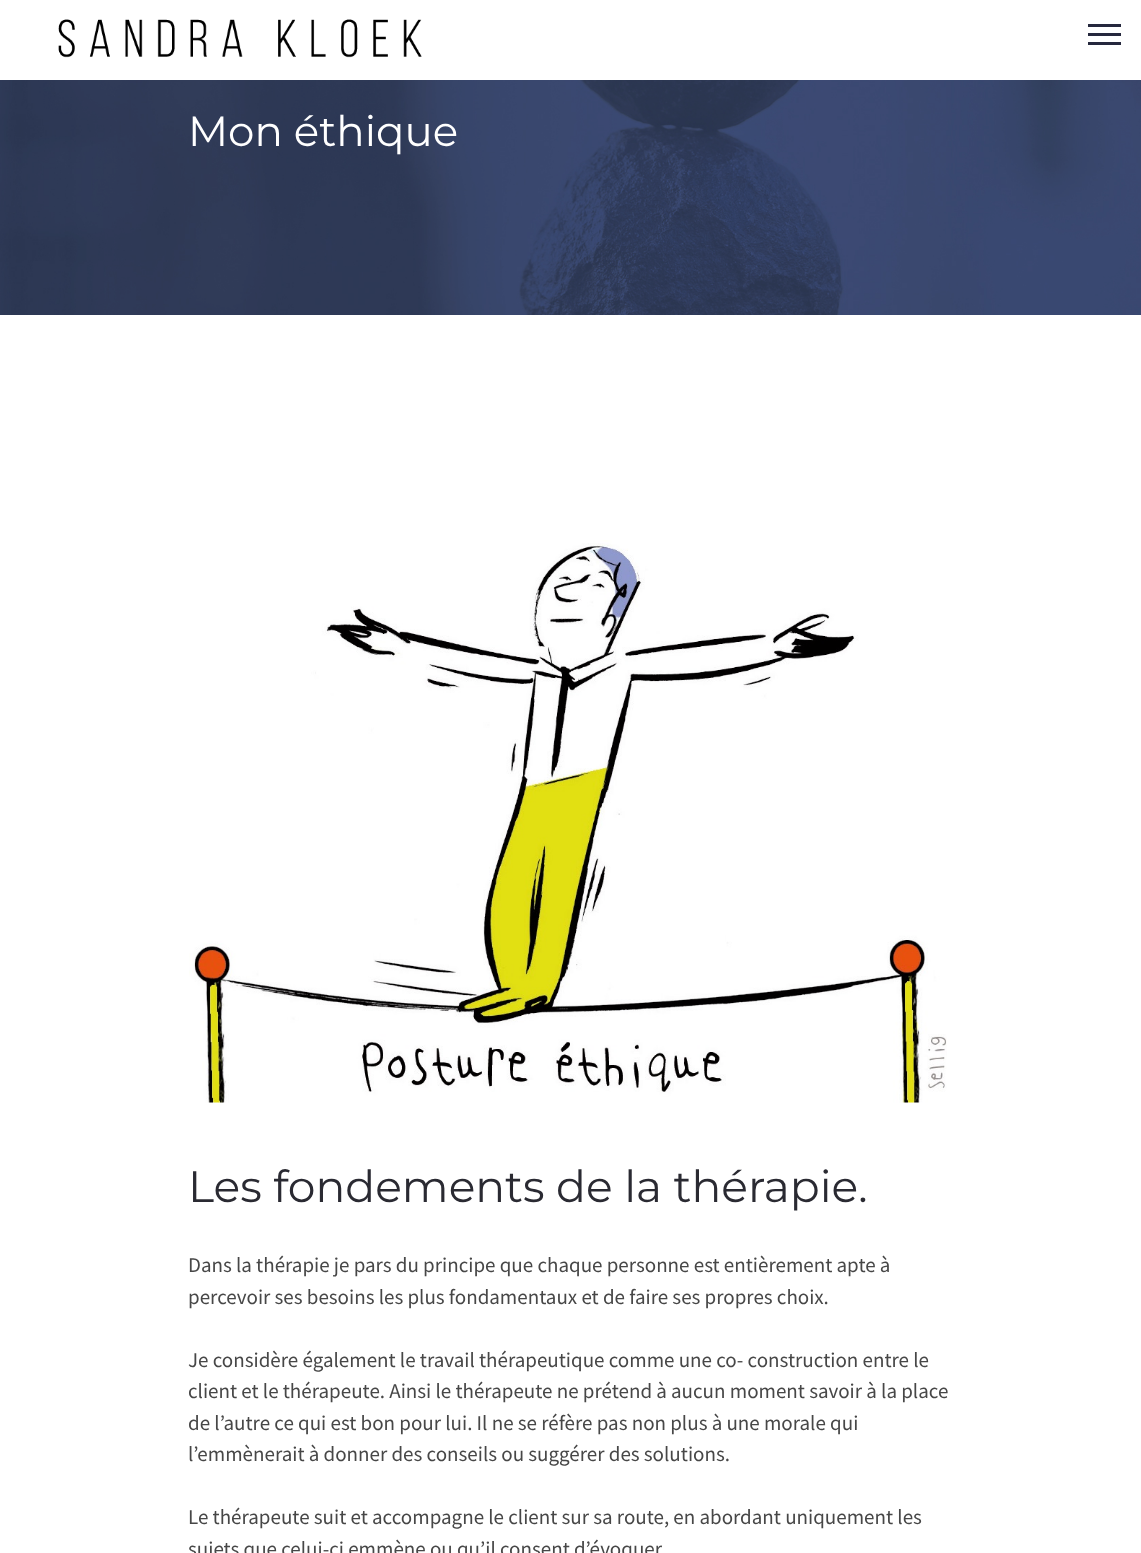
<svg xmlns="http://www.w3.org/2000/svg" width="1141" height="1553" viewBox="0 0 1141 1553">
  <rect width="100%" height="100%" fill="rgb(255,255,255)"/>
  <image x="58" y="19" width="364" height="39" href="pic1.png"/>
  <rect x="1088" y="33" width="33" height="3" fill="rgb(37,40,61)"/>
  <rect x="1088" y="24" width="33" height="3" fill="rgb(37,40,61)"/>
  <rect x="1088" y="42" width="33" height="3" fill="rgb(37,40,61)"/>
  <image x="0" y="80" width="1141" height="235" href="pic2.png"/>
  <text x="188" y="146" font-family="Montserrat" font-size="42" fill="rgb(255,255,255)">Mon éthique</text>
  <image x="189" y="540" width="758" height="563" href="pic3.png"/>
  <text x="188" y="1202" font-family="Montserrat" font-size="44.1" fill="rgb(42,42,50)">Les fondements de la thérapie.</text>
  <g font-family="Source Sans Pro" font-size="21" fill="rgb(71,71,71)">
    <text>
      <tspan x="188" y="1272">Dans la thérapie je pars du principe que chaque personne est entièrement apte à</tspan>
      <tspan x="188" y="1304">percevoir ses besoins les plus fondamentaux et de faire ses propres choix.</tspan>
    </text>
    <text>
      <tspan x="188" y="1367">Je considère également le travail thérapeutique comme une co- construction entre le</tspan>
      <tspan x="188" y="1398">client et le thérapeute. Ainsi le thérapeute ne prétend à aucun moment savoir à la place</tspan>
      <tspan x="188" y="1430">de l’autre ce qui est bon pour lui. Il ne se réfère pas non plus à une morale qui</tspan>
      <tspan x="188" y="1461">l’emmènerait à donner des conseils ou suggérer des solutions.</tspan>
    </text>
    <text>
      <tspan x="188" y="1524">Le thérapeute suit et accompagne le client sur sa route, en abordant uniquement les</tspan>
      <tspan x="188" y="1556">sujets que celui-ci emmène ou qu’il consent d’évoquer.</tspan>
    </text>
  </g>
</svg>
